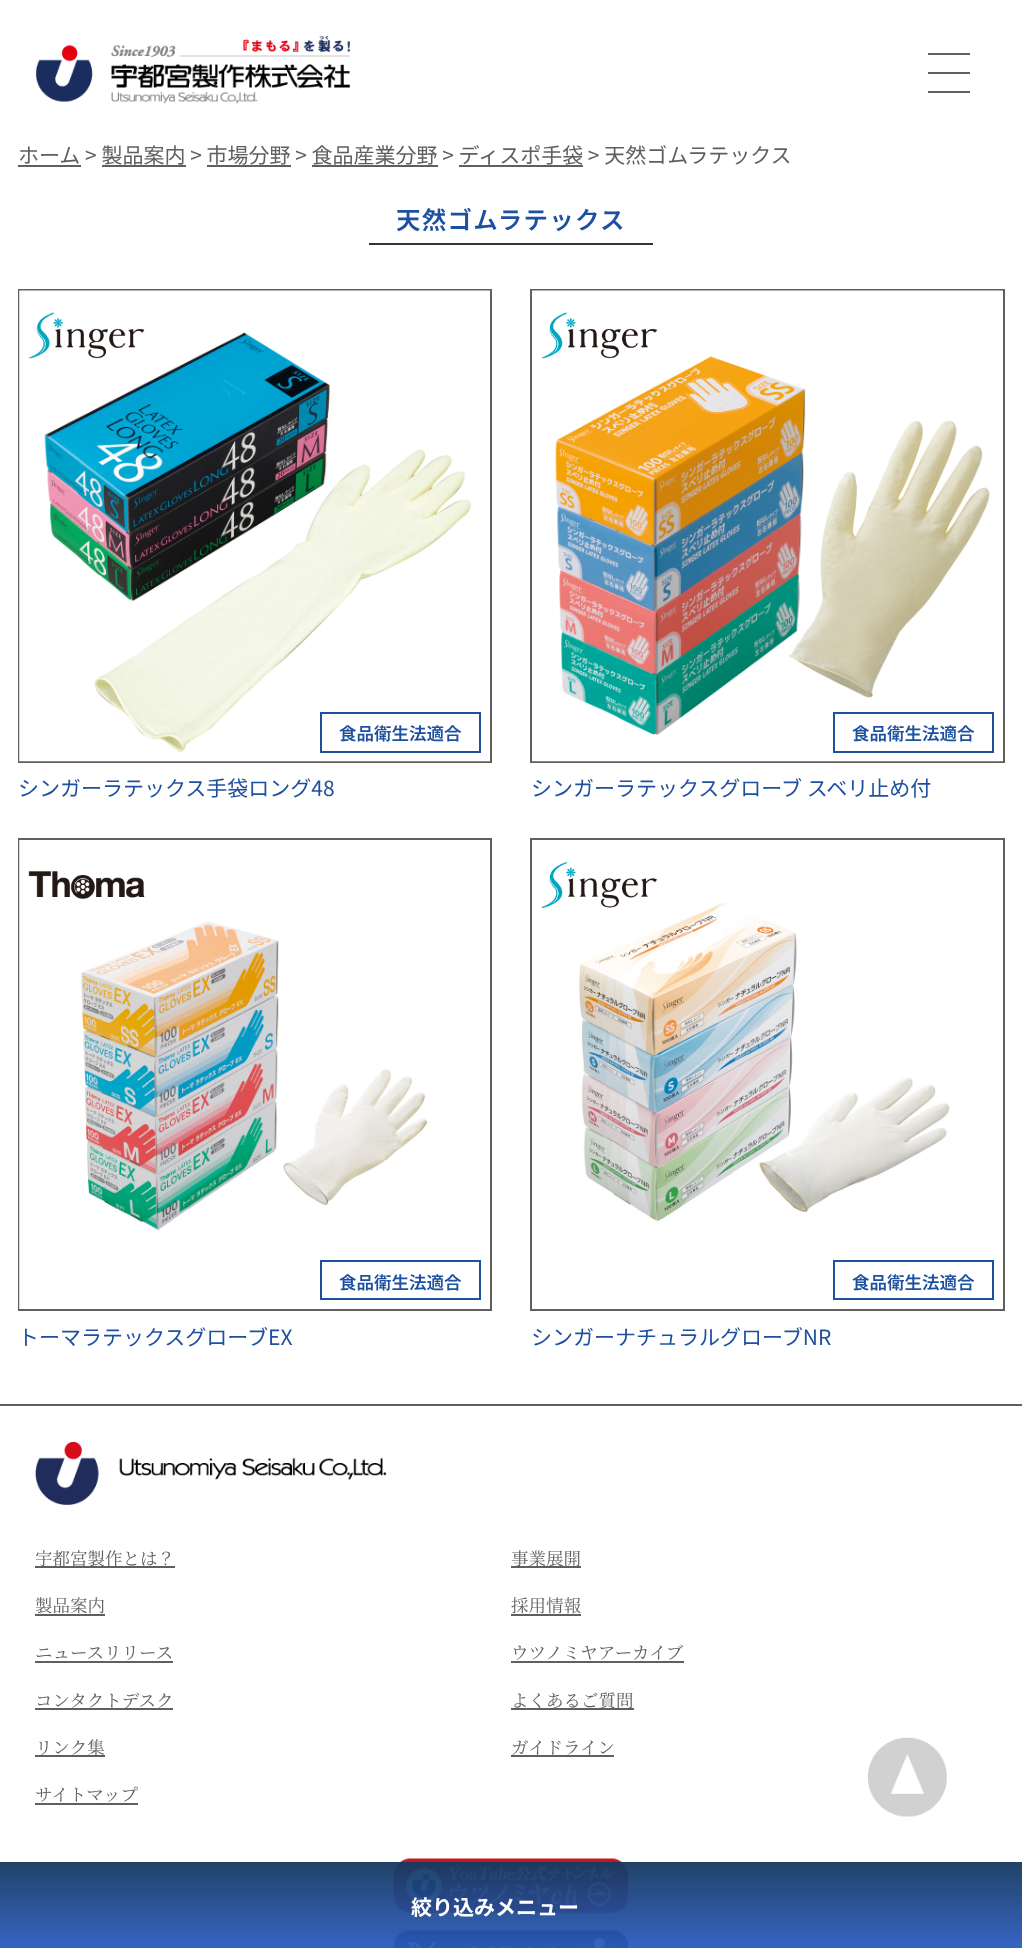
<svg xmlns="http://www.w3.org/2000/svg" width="1022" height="1948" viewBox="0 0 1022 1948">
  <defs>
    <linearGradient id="g1" gradientUnits="userSpaceOnUse" x1="511" y1="1862" x2="511" y2="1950"><stop offset="0" stop-color="rgb(21,57,97)" stop-opacity="0.95"/><stop offset="1" stop-color="rgb(44,93,193)" stop-opacity="0.95"/></linearGradient>
  </defs>
  <rect width="100%" height="100%" fill="rgb(255,255,255)"/>
  <image x="35" y="35" width="315" height="69" href="pic1.png"/>
  <rect x="928" y="53" width="42" height="2" fill="rgb(95,95,95)"/>
  <rect x="928" y="72" width="42" height="2" fill="rgb(95,95,95)"/>
  <rect x="928" y="91" width="42" height="2" fill="rgb(95,95,95)"/>
  <text x="18" y="163" font-family="Noto Sans JP" font-size="21" fill="rgb(95,95,95)">ホーム &gt; 製品案内 &gt; 市場分野 &gt; 食品産業分野 &gt; ディスポ手袋 &gt; 天然ゴムラテックス</text>
  <rect x="18" y="165" width="63" height="2" fill="rgb(95,95,95)"/>
  <rect x="102" y="165" width="84" height="2" fill="rgb(95,95,95)"/>
  <rect x="207" y="165" width="84" height="2" fill="rgb(95,95,95)"/>
  <rect x="312" y="165" width="126" height="2" fill="rgb(95,95,95)"/>
  <rect x="459" y="165" width="124" height="2" fill="rgb(95,95,95)"/>
  <rect x="369" y="243" width="284" height="2" fill="rgb(51,51,51)"/>
  <text x="396" y="229" font-family="Noto Sans JP" font-size="24.5" font-weight="600" letter-spacing="1.25" fill="rgb(29,80,158)">天然ゴムラテックス</text>
  <rect x="19" y="290" width="472" height="472" fill="none" stroke="rgb(95,95,95)" stroke-width="2"/>
  <image x="19" y="290" width="471" height="472" href="pic2.png"/>
  <image x="28" y="312" width="117" height="47" href="pic3.png"/>
  <rect x="321" y="713" width="159" height="39" fill="none" stroke="rgb(29,80,158)" stroke-width="2"/>
  <text x="339" y="740" font-family="Noto Sans JP" font-size="17.5" font-weight="600" fill="rgb(29,80,158)">食品衛生法適合</text>
  <text x="18" y="796" font-family="Noto Sans JP" font-size="21" fill="rgb(29,80,158)">シンガーラテックス手袋ロング48</text>
  <rect x="531" y="290" width="473" height="472" fill="none" stroke="rgb(95,95,95)" stroke-width="2"/>
  <image x="532" y="290" width="471" height="472" href="pic4.png"/>
  <image x="541" y="312" width="117" height="47" href="pic5.png"/>
  <rect x="834" y="713" width="159" height="39" fill="none" stroke="rgb(29,80,158)" stroke-width="2"/>
  <text x="852" y="740" font-family="Noto Sans JP" font-size="17.5" font-weight="600" fill="rgb(29,80,158)">食品衛生法適合</text>
  <text x="531" y="796" font-family="Noto Sans JP" font-size="21" fill="rgb(29,80,158)">シンガーラテックスグローブ スベリ止め付</text>
  <rect x="19" y="839" width="472" height="471" fill="none" stroke="rgb(95,95,95)" stroke-width="2"/>
  <image x="19" y="840" width="409" height="469" href="pic6.png"/>
  <image x="28" y="871" width="117" height="28" href="pic7.png"/>
  <rect x="321" y="1261" width="159" height="38" fill="none" stroke="rgb(29,80,158)" stroke-width="2"/>
  <text x="339" y="1289" font-family="Noto Sans JP" font-size="17.5" font-weight="600" fill="rgb(29,80,158)">食品衛生法適合</text>
  <text x="18" y="1345" font-family="Noto Sans JP" font-size="21" fill="rgb(29,80,158)">トーマラテックスグローブEX</text>
  <rect x="531" y="839" width="473" height="471" fill="none" stroke="rgb(95,95,95)" stroke-width="2"/>
  <image x="579" y="903" width="371" height="319" href="pic9.png"/>
  <image x="541" y="861" width="117" height="48" href="pic8.png"/>
  <rect x="834" y="1261" width="159" height="38" fill="none" stroke="rgb(29,80,158)" stroke-width="2"/>
  <text x="852" y="1289" font-family="Noto Sans JP" font-size="17.5" font-weight="600" fill="rgb(29,80,158)">食品衛生法適合</text>
  <text x="531" y="1345" font-family="Noto Sans JP" font-size="21" fill="rgb(29,80,158)">シンガーナチュラルグローブNR</text>
  <image x="393" y="1858" width="236" height="55" href="pic12.png"/>
  <image x="393" y="1930" width="236" height="18" href="pic13.png"/>
  <rect x="0" y="1862" width="1022" height="86" fill="url(#g1)"/>
  <text x="411" y="1915" font-family="Noto Sans JP" font-size="21" font-weight="bold" fill="rgb(255,255,255)">絞り込みメニュー</text>
  <rect x="0" y="1404" width="1022" height="2" fill="rgb(95,95,95)"/>
  <image x="35" y="1441" width="352" height="64" href="pic10.png"/>
  <rect x="35" y="1566" width="140" height="2" fill="rgb(95,95,95)"/>
  <text x="35" y="1565" font-family="Noto Serif JP" font-size="17.5" fill="rgb(95,95,95)">宇都宮製作とは？</text>
  <rect x="511" y="1566" width="70" height="2" fill="rgb(95,95,95)"/>
  <g font-family="Noto Serif JP" font-size="17.5" fill="rgb(95,95,95)">
    <text x="511" y="1565">事業展開</text>
    <text x="35" y="1612">製品案内</text>
  </g>
  <rect x="35" y="1614" width="70" height="2" fill="rgb(95,95,95)"/>
  <text x="511" y="1612" font-family="Noto Serif JP" font-size="17.5" fill="rgb(95,95,95)">採用情報</text>
  <rect x="511" y="1614" width="70" height="2" fill="rgb(95,95,95)"/>
  <text x="35" y="1659" font-family="Noto Serif JP" font-size="17.5" fill="rgb(95,95,95)">ニュースリリース</text>
  <rect x="35" y="1661" width="138" height="2" fill="rgb(95,95,95)"/>
  <text x="511" y="1659" font-family="Noto Serif JP" font-size="17.5" fill="rgb(95,95,95)">ウツノミヤアーカイブ</text>
  <rect x="511" y="1661" width="173" height="2" fill="rgb(95,95,95)"/>
  <rect x="35" y="1708" width="138" height="2" fill="rgb(95,95,95)"/>
  <text x="35" y="1707" font-family="Noto Serif JP" font-size="17.5" fill="rgb(95,95,95)">コンタクトデスク</text>
  <rect x="511" y="1708" width="123" height="2" fill="rgb(95,95,95)"/>
  <text x="511" y="1707" font-family="Noto Serif JP" font-size="17.5" fill="rgb(95,95,95)">よくあるご質問</text>
  <rect x="35" y="1755" width="70" height="2" fill="rgb(95,95,95)"/>
  <g font-family="Noto Serif JP" font-size="17.5" fill="rgb(95,95,95)">
    <text x="35" y="1754">リンク集</text>
    <text x="511" y="1754">ガイドライン</text>
  </g>
  <rect x="511" y="1755" width="103" height="2" fill="rgb(95,95,95)"/>
  <text x="35" y="1801" font-family="Noto Serif JP" font-size="17.5" fill="rgb(95,95,95)">サイトマップ</text>
  <rect x="35" y="1803" width="103" height="2" fill="rgb(95,95,95)"/>
  <image x="868" y="1737" width="79" height="80" href="pic11.png"/>
</svg>
